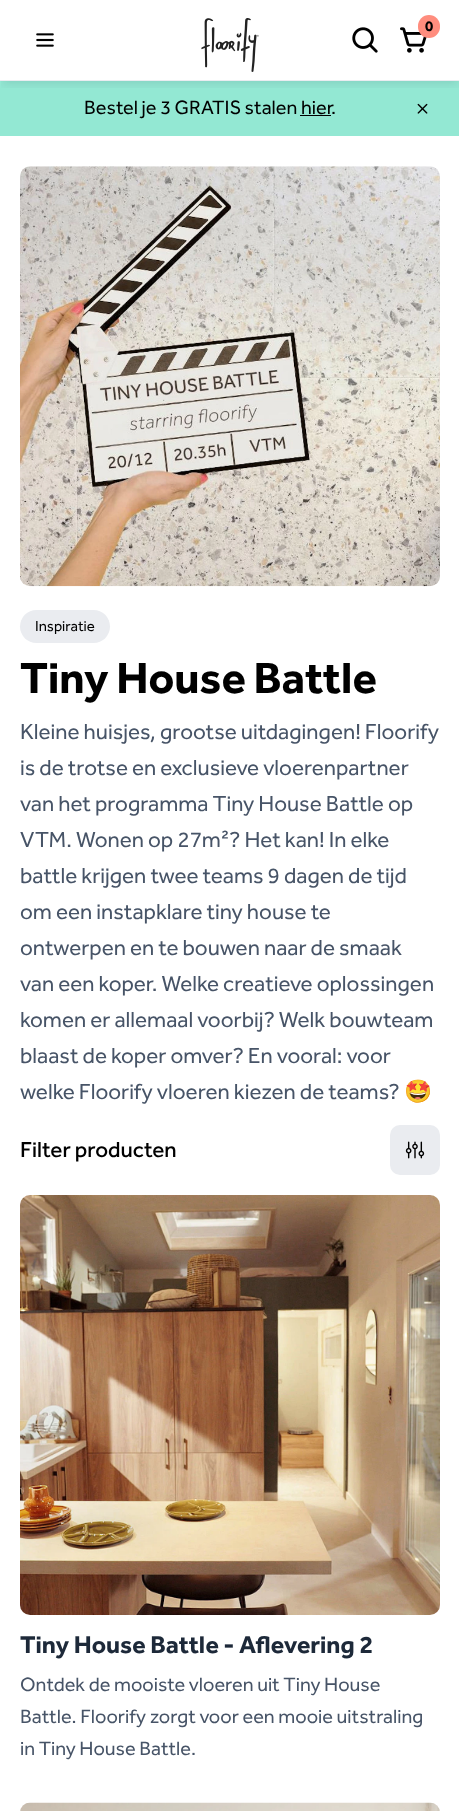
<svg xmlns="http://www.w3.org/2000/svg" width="459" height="1811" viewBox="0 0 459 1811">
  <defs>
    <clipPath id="clip1"><rect x="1" y="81" width="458" height="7"/></clipPath>
  </defs>
  <rect width="100%" height="100%" fill="rgb(255,255,255)"/>
  <rect x="0" y="81" width="459" height="55" fill="rgb(147,232,211)"/>
  <g clip-path="url(#clip1)">
    <rect x="3" y="8" width="455" height="76" fill="rgba(16,24,40,0.1)" filter="blur(5px)"/>
  </g>
  <rect x="0" y="80" width="459" height="1" fill="rgb(234,236,240)"/>
  <image x="201" y="18" width="58" height="54" href="pic1.png"/>
  <image x="352" y="27" width="26" height="26" href="pic2.png"/>
  <image x="400" y="27" width="27" height="26" href="pic3.png"/>
  <rect x="418" y="15" width="22" height="23" rx="11" fill="rgb(255,141,126)"/>
  <text x="425" y="31" font-family="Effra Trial" font-size="15" font-weight="bold" letter-spacing="-1" fill="rgb(0,0,0)">0</text>
  <image x="36" y="33" width="18" height="14" href="pic4.png"/>
  <g font-family="Effra Trial" font-size="20" fill="rgb(0,0,0)">
    <text x="84" y="114">Bestel je 3 GRATIS stalen hier</text>
    <text x="331" y="114">.</text>
  </g>
  <rect x="300" y="115" width="31" height="1" fill="rgb(0,0,0)"/>
  <image x="417" y="103" width="11" height="11" href="pic5.png"/>
  <image x="20" y="166" width="420" height="421" href="pic6.png"/>
  <rect x="20" y="610" width="90" height="33" rx="16.5" fill="rgb(234,236,240)"/>
  <text x="35" y="631" font-family="Effra Trial" font-size="15" fill="rgb(0,0,0)">Inspiratie</text>
  <text x="20" y="693" font-family="Effra Trial" font-size="45" font-weight="bold" fill="rgb(0,0,0)">Tiny House Battle</text>
  <g font-family="Effra Trial" font-size="22.5" fill="rgb(71,84,103)">
    <text>
      <tspan x="20" y="739">Kleine huisjes, grootse uitdagingen! Floorify</tspan>
      <tspan x="20" y="775">is de trotse en exclusieve vloerenpartner</tspan>
      <tspan x="20" y="811">van het programma Tiny House Battle op</tspan>
      <tspan x="20" y="847">VTM. Wonen op 27m²? Het kan! In elke</tspan>
      <tspan x="20" y="883">battle krijgen twee teams 9 dagen de tijd</tspan>
      <tspan x="20" y="919">om een instapklare tiny house te</tspan>
      <tspan x="20" y="955">ontwerpen en te bouwen naar de smaak</tspan>
      <tspan x="20" y="991">van een koper. Welke creatieve oplossingen</tspan>
      <tspan x="20" y="1027">komen er allemaal voorbij? Welk bouwteam</tspan>
      <tspan x="20" y="1063">blaast de koper omver? En vooral: voor</tspan>
      <tspan x="20" y="1099">welke Floorify vloeren kiezen de teams?</tspan>
    </text>
  </g>
  <text x="404" y="1099" font-family="Noto Color Emoji" font-size="22.5" fill="rgb(71,84,103)">🤩</text>
  <text x="20" y="1157" font-family="Effra Trial" font-size="22.5" font-weight="500" fill="rgb(0,0,0)">Filter producten</text>
  <rect x="390" y="1125" width="50" height="50" rx="10" fill="rgb(234,236,240)"/>
  <image x="405" y="1141" width="20" height="18" href="pic7.png"/>
  <image x="20" y="1195" width="420" height="420" href="pic8.png"/>
  <text x="20" y="1653" word-spacing="0.25" font-family="Effra Trial" font-size="25" font-weight="bold" fill="rgb(29,41,57)">Tiny House Battle - Aflevering 2</text>
  <g font-family="Effra Trial" font-size="20" fill="rgb(71,84,103)">
    <text>
      <tspan x="20" y="1691">Ontdek de mooiste vloeren uit Tiny House</tspan>
      <tspan x="20" y="1723">Battle. Floorify zorgt voor een mooie uitstraling</tspan>
      <tspan x="20" y="1755">in Tiny House Battle.</tspan>
    </text>
  </g>
  <image x="20" y="1802" width="420" height="9" href="pic9.png"/>
</svg>
